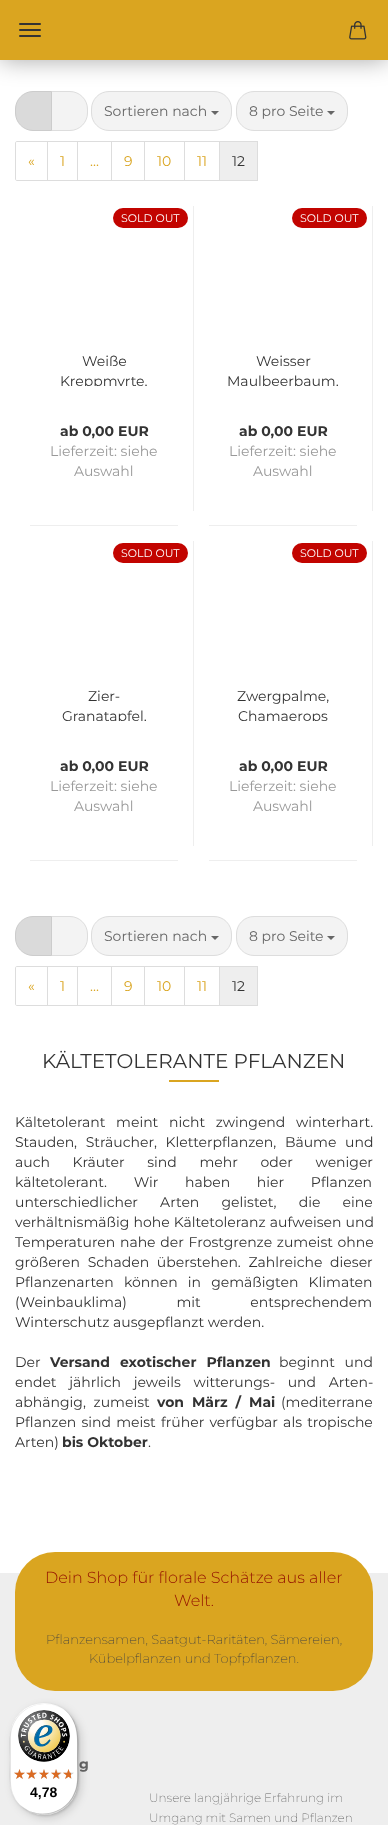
<svg xmlns="http://www.w3.org/2000/svg" width="388" height="1825" viewBox="0 0 388 1825">
  <defs>
    <clipPath id="clip1"><rect x="45" y="351" width="118" height="35"/></clipPath>
    <clipPath id="clip2"><rect x="224" y="351" width="118" height="35"/></clipPath>
    <clipPath id="clip3"><rect x="45" y="686" width="118" height="35"/></clipPath>
    <clipPath id="clip4"><rect x="224" y="686" width="118" height="35"/></clipPath>
  </defs>
  <rect width="100%" height="100%" fill="rgb(255,255,255)"/>
  <path d="M51.5 91.5H70C79.5 91.5 87.5 99.5 87.5 109V113C87.5 122.5 79.5 130.5 70 130.5H51.5Z" fill="rgb(243,243,243)" stroke="rgb(221,221,221)"/>
  <path d="M33 91.5H51.5V130.5H33C23.5 130.5 15.5 122.5 15.5 113V109C15.5 99.5 23.5 91.5 33 91.5Z" fill="rgb(218,218,218)" stroke="rgb(204,204,204)"/>
  <rect x="91.5" y="91.5" width="140" height="39" rx="17.5" fill="rgb(243,243,243)" stroke="rgb(221,221,221)"/>
  <rect x="236.5" y="91.5" width="111" height="39" rx="17.5" fill="rgb(243,243,243)" stroke="rgb(221,221,221)"/>
  <rect x="0" y="0" width="388" height="60" fill="rgba(0,0,0,0.35)" filter="blur(12.5px)"/>
  <rect x="0" y="0" width="388" height="60" fill="rgb(218,165,32)"/>
  <image x="349" y="21" width="18" height="19" href="pic1.png"/>
  <rect x="19" y="29" width="22" height="2" rx="1" fill="rgb(51,51,51)"/>
  <rect x="19" y="23" width="22" height="2" rx="1" fill="rgb(51,51,51)"/>
  <rect x="19" y="35" width="22" height="2" rx="1" fill="rgb(51,51,51)"/>
  <text x="104" y="116" font-family="Montserrat" font-size="14" fill="rgb(102,102,102)">Sortieren nach</text>
  <path d="M211 111H219L215 115Z" fill="rgb(102,102,102)"/>
  <text x="249" y="116" font-family="Montserrat" font-size="14" fill="rgb(102,102,102)">8 pro Seite</text>
  <path d="M327 111H335L331 115Z" fill="rgb(102,102,102)"/>
  <path d="M17 141.5H47.5V180.5H17C16 180.5 15.5 180 15.5 179V143C15.5 142 16 141.5 17 141.5Z" fill="none" stroke="rgb(221,221,221)"/>
  <text x="28" y="166" font-family="Montserrat" font-size="14" fill="rgb(218,165,32)">«</text>
  <rect x="47.5" y="141.5" width="30" height="39" fill="none" stroke="rgb(221,221,221)"/>
  <text x="60" y="166" font-family="Montserrat" font-size="14" fill="rgb(218,165,32)">1</text>
  <rect x="77.5" y="141.5" width="34" height="39" fill="none" stroke="rgb(221,221,221)"/>
  <rect x="111.5" y="141.5" width="33" height="39" fill="none" stroke="rgb(221,221,221)"/>
  <text x="124" y="166" font-family="Montserrat" font-size="14" fill="rgb(218,165,32)">9</text>
  <rect x="144.5" y="141.5" width="40" height="39" fill="none" stroke="rgb(221,221,221)"/>
  <text x="157" y="166" font-family="Montserrat" font-size="14" fill="rgb(218,165,32)">10</text>
  <rect x="184.5" y="141.5" width="35" height="39" fill="none" stroke="rgb(221,221,221)"/>
  <text x="197" y="166" font-family="Montserrat" font-size="14" fill="rgb(218,165,32)">11</text>
  <rect x="219.5" y="141.5" width="38" height="39" fill="rgb(238,238,238)" stroke="rgb(221,221,221)"/>
  <text x="232" y="166" font-family="Montserrat" font-size="14" fill="rgb(51,51,51)">12</text>
  <text x="90" y="166" font-family="Montserrat" font-size="14" fill="rgb(218,165,32)">...</text>
  <rect x="193" y="206" width="1" height="305" fill="rgb(238,238,238)"/>
  <rect x="30" y="525" width="148" height="1" fill="rgb(238,238,238)"/>
  <rect x="113" y="208" width="75" height="20" rx="10" fill="rgb(194,4,0)"/>
  <text x="121" y="222" font-family="Montserrat" font-size="11" fill="rgb(255,255,255)">SOLD OUT</text>
  <text x="82" y="366" font-family="Montserrat" font-size="14" fill="rgb(51,51,51)">Weiße</text>
  <g clip-path="url(#clip1)">
    <text x="60" y="386" font-family="Montserrat" font-size="14" fill="rgb(51,51,51)">Kreppmyrte,</text>
  </g>
  <text x="60" y="436" font-family="Montserrat" font-size="14" font-weight="bold" fill="rgb(51,51,51)">ab 0,00 EUR</text>
  <g font-family="Montserrat" font-size="14" fill="rgb(153,153,153)">
    <text x="50" y="456">Lieferzeit: siehe</text>
    <text x="74" y="476">Auswahl</text>
  </g>
  <rect x="372" y="206" width="1" height="305" fill="rgb(238,238,238)"/>
  <rect x="209" y="525" width="148" height="1" fill="rgb(238,238,238)"/>
  <rect x="292" y="208" width="75" height="20" rx="10" fill="rgb(194,4,0)"/>
  <text x="300" y="222" font-family="Montserrat" font-size="11" fill="rgb(255,255,255)">SOLD OUT</text>
  <text x="256" y="366" font-family="Montserrat" font-size="14" fill="rgb(51,51,51)">Weisser</text>
  <g clip-path="url(#clip2)">
    <text x="227" y="386" font-family="Montserrat" font-size="14" fill="rgb(51,51,51)">Maulbeerbaum,</text>
  </g>
  <text x="239" y="436" font-family="Montserrat" font-size="14" font-weight="bold" fill="rgb(51,51,51)">ab 0,00 EUR</text>
  <g font-family="Montserrat" font-size="14" fill="rgb(153,153,153)">
    <text x="229" y="456">Lieferzeit: siehe</text>
    <text x="253" y="476">Auswahl</text>
  </g>
  <rect x="193" y="541" width="1" height="305" fill="rgb(238,238,238)"/>
  <rect x="30" y="860" width="148" height="1" fill="rgb(238,238,238)"/>
  <rect x="113" y="543" width="75" height="20" rx="10" fill="rgb(194,4,0)"/>
  <text x="121" y="557" font-family="Montserrat" font-size="11" fill="rgb(255,255,255)">SOLD OUT</text>
  <text x="88" y="701" font-family="Montserrat" font-size="14" fill="rgb(51,51,51)">Zier-</text>
  <g clip-path="url(#clip3)">
    <text x="62" y="721" font-family="Montserrat" font-size="14" fill="rgb(51,51,51)">Granatapfel,</text>
  </g>
  <text x="60" y="771" font-family="Montserrat" font-size="14" font-weight="bold" fill="rgb(51,51,51)">ab 0,00 EUR</text>
  <g font-family="Montserrat" font-size="14" fill="rgb(153,153,153)">
    <text x="50" y="791">Lieferzeit: siehe</text>
    <text x="74" y="811">Auswahl</text>
  </g>
  <rect x="372" y="541" width="1" height="305" fill="rgb(238,238,238)"/>
  <rect x="209" y="860" width="148" height="1" fill="rgb(238,238,238)"/>
  <rect x="292" y="543" width="75" height="20" rx="10" fill="rgb(194,4,0)"/>
  <text x="300" y="557" font-family="Montserrat" font-size="11" fill="rgb(255,255,255)">SOLD OUT</text>
  <text x="237" y="701" font-family="Montserrat" font-size="14" fill="rgb(51,51,51)">Zwergpalme,</text>
  <g clip-path="url(#clip4)">
    <text x="238" y="721" font-family="Montserrat" font-size="14" fill="rgb(51,51,51)">Chamaerops</text>
  </g>
  <text x="239" y="771" font-family="Montserrat" font-size="14" font-weight="bold" fill="rgb(51,51,51)">ab 0,00 EUR</text>
  <g font-family="Montserrat" font-size="14" fill="rgb(153,153,153)">
    <text x="229" y="791">Lieferzeit: siehe</text>
    <text x="253" y="811">Auswahl</text>
  </g>
  <path d="M51.5 916.5H70C79.5 916.5 87.5 924.5 87.5 934V938C87.5 947.5 79.5 955.5 70 955.5H51.5Z" fill="rgb(243,243,243)" stroke="rgb(221,221,221)"/>
  <path d="M33 916.5H51.5V955.5H33C23.5 955.5 15.5 947.5 15.5 938V934C15.5 924.5 23.5 916.5 33 916.5Z" fill="rgb(218,218,218)" stroke="rgb(204,204,204)"/>
  <rect x="91.5" y="916.5" width="140" height="39" rx="17.5" fill="rgb(243,243,243)" stroke="rgb(221,221,221)"/>
  <text x="104" y="941" font-family="Montserrat" font-size="14" fill="rgb(102,102,102)">Sortieren nach</text>
  <path d="M211 936H219L215 940Z" fill="rgb(102,102,102)"/>
  <rect x="236.5" y="916.5" width="111" height="39" rx="17.5" fill="rgb(243,243,243)" stroke="rgb(221,221,221)"/>
  <text x="249" y="941" font-family="Montserrat" font-size="14" fill="rgb(102,102,102)">8 pro Seite</text>
  <path d="M327 936H335L331 940Z" fill="rgb(102,102,102)"/>
  <path d="M17 966.5H47.5V1005.5H17C16 1005.5 15.5 1005 15.5 1004V968C15.5 967 16 966.5 17 966.5Z" fill="none" stroke="rgb(221,221,221)"/>
  <text x="28" y="991" font-family="Montserrat" font-size="14" fill="rgb(218,165,32)">«</text>
  <rect x="47.5" y="966.5" width="30" height="39" fill="none" stroke="rgb(221,221,221)"/>
  <text x="60" y="991" font-family="Montserrat" font-size="14" fill="rgb(218,165,32)">1</text>
  <rect x="77.5" y="966.5" width="34" height="39" fill="none" stroke="rgb(221,221,221)"/>
  <rect x="111.5" y="966.5" width="33" height="39" fill="none" stroke="rgb(221,221,221)"/>
  <text x="124" y="991" font-family="Montserrat" font-size="14" fill="rgb(218,165,32)">9</text>
  <rect x="144.5" y="966.5" width="40" height="39" fill="none" stroke="rgb(221,221,221)"/>
  <text x="157" y="991" font-family="Montserrat" font-size="14" fill="rgb(218,165,32)">10</text>
  <rect x="184.5" y="966.5" width="35" height="39" fill="none" stroke="rgb(221,221,221)"/>
  <text x="197" y="991" font-family="Montserrat" font-size="14" fill="rgb(218,165,32)">11</text>
  <rect x="219.5" y="966.5" width="38" height="39" fill="rgb(238,238,238)" stroke="rgb(221,221,221)"/>
  <text x="232" y="991" font-family="Montserrat" font-size="14" fill="rgb(51,51,51)">12</text>
  <text x="90" y="991" font-family="Montserrat" font-size="14" fill="rgb(218,165,32)">...</text>
  <text x="42" y="1068" font-family="Montserrat" font-size="20" fill="rgb(51,51,51)">KÄLTETOLERANTE PFLANZEN</text>
  <rect x="169" y="1080" width="50" height="2" fill="rgb(218,165,32)"/>
  <g font-family="Montserrat" font-size="14" fill="rgb(51,51,51)">
    <text>
      <tspan x="15" y="1127" word-spacing="7">Kältetolerant meint nicht zwingend winterhart.</tspan>
      <tspan x="15" y="1147" word-spacing="5">Stauden, Sträucher, Kletterpflanzen, Bäume und</tspan>
      <tspan x="15" y="1167" word-spacing="19">auch Kräuter sind mehr oder weniger</tspan>
      <tspan x="15" y="1187" word-spacing="23">kältetolerant. Wir haben hier Pflanzen</tspan>
      <tspan x="15" y="1207" word-spacing="18.5">unterschiedlicher Arten gelistet, die eine</tspan>
      <tspan x="15" y="1227" word-spacing="0.5">verhältnismäßig hohe Kältetoleranz aufweisen und</tspan>
      <tspan x="15" y="1247" word-spacing="1">Temperaturen nahe der Frostgrenze zumeist ohne</tspan>
      <tspan x="15" y="1267" word-spacing="4">größeren Schaden überstehen. Zahlreiche dieser</tspan>
      <tspan x="15" y="1287" word-spacing="6.5">Pflanzenarten können in gemäßigten Klimaten</tspan>
      <tspan x="15" y="1307" word-spacing="46">(Weinbauklima) mit entsprechendem</tspan>
      <tspan x="15" y="1327">Winterschutz ausgepflanzt werden.</tspan>
    </text>
    <text x="15" y="1367">Der</text>
  </g>
  <text x="50" y="1367" word-spacing="6" font-family="Montserrat" font-size="14" font-weight="bold" fill="rgb(51,51,51)">Versand exotischer Pflanzen</text>
  <g font-family="Montserrat" font-size="14" fill="rgb(51,51,51)">
    <text x="279" y="1367" word-spacing="6">beginnt und</text>
    <text>
      <tspan x="15" y="1387" word-spacing="9">endet jährlich jeweils witterungs- und Arten-</tspan>
      <tspan x="15" y="1407" word-spacing="4">abhängig, zumeist</tspan>
    </text>
  </g>
  <text x="157" y="1407" word-spacing="4" font-family="Montserrat" font-size="14" font-weight="bold" fill="rgb(51,51,51)">von März / Mai</text>
  <g font-family="Montserrat" font-size="14" fill="rgb(51,51,51)">
    <text x="281" y="1407">(mediterrane</text>
    <text>
      <tspan x="15" y="1427" word-spacing="1.5">Pflanzen sind meist früher verfügbar als tropische</tspan>
      <tspan x="15" y="1447">Arten)</tspan>
    </text>
  </g>
  <text x="62" y="1447" font-family="Montserrat" font-size="14" font-weight="bold" fill="rgb(51,51,51)">bis Oktober</text>
  <text x="148" y="1447" font-family="Montserrat" font-size="14" fill="rgb(51,51,51)">.</text>
  <rect x="0" y="1573" width="388" height="252" fill="rgb(238,238,238)"/>
  <rect x="15" y="1552" width="358" height="139" rx="40" fill="rgb(218,165,32)"/>
  <g font-family="Montserrat" font-size="16" font-weight="300" fill="rgb(148,17,0)">
    <text x="45" y="1583">Dein Shop für florale Schätze aus aller</text>
    <text x="174" y="1606">Welt.</text>
  </g>
  <g font-family="Montserrat" font-size="13" font-weight="200" fill="rgb(66,66,66)">
    <text x="46" y="1644">Pflanzensamen, Saatgut-Raritäten, Sämereien,</text>
    <text x="89" y="1663">Kübelpflanzen und Topfpflanzen.</text>
  </g>
  <text x="79" y="1769" font-family="Montserrat" font-size="14" font-weight="bold" fill="rgb(102,102,102)">g</text>
  <g font-family="Montserrat" font-size="12" font-weight="200" fill="rgb(102,102,102)">
    <text>
      <tspan x="149" y="1802">Unsere langjährige Erfahrung im</tspan>
      <tspan x="149" y="1822">Umgang mit Samen und Pflanzen</tspan>
    </text>
  </g>
  <rect x="13" y="1706" width="68" height="112" rx="34" fill="rgba(0,0,0,0.15)" filter="blur(4px)"/>
  <rect x="11" y="1704" width="68" height="112" rx="34" fill="rgba(0,0,0,0.15)" filter="blur(1px)"/>
  <rect x="10" y="1703" width="68" height="112" rx="34" fill="rgb(255,255,255)"/>
  <path d="M45 1704C53 1704 61 1707 67 1712C50 1697 22 1703 13 1724C8 1734 10 1748 10 1759C10 1774 7 1791 19 1804C14 1798 11 1790 11 1782V1738C11 1719 26 1704 45 1704Z" fill="rgba(0,0,0,0.1)"/>
  <path d="M21 1806C38 1821 66 1815 75 1794C80 1784 78 1770 78 1759C78 1744 81 1727 69 1714C79 1727 77 1743 77 1758C77 1769 79 1783 74 1793C66 1814 38 1820 21 1806Z" fill="rgba(0,0,0,0.2)"/>
  <path d="M17 1802C24 1810 33 1815 44 1815C63 1815 78 1800 78 1781V1737C78 1726 73 1717 65 1710C72 1717 77 1726 77 1736V1780C77 1799 62 1814 43 1814C33 1814 24 1809 17 1802Z" fill="rgba(50,50,50,0.2)"/>
  <path d="M10 1780C10 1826 78 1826 78 1780C78 1799 62 1814 44 1814C25 1814 10 1799 10 1780Z" fill="rgba(255,255,255,0.3)"/>
  <image x="18" y="1710" width="52" height="52" href="pic2.png"/>
  <image x="14" y="1769" width="11" height="10" href="pic3.png"/>
  <image x="27" y="1769" width="10" height="10" href="pic4.png"/>
  <image x="39" y="1769" width="10" height="10" href="pic5.png"/>
  <image x="51" y="1769" width="11" height="10" href="pic6.png"/>
  <image x="63" y="1769" width="11" height="10" href="pic6.png"/>
  <image x="14" y="1769" width="11" height="10" href="pic7.png"/>
  <image x="26" y="1769" width="11" height="10" href="pic8.png"/>
  <image x="39" y="1769" width="10" height="10" href="pic9.png"/>
  <image x="51" y="1769" width="10" height="10" href="pic10.png"/>
  <image x="63" y="1769" width="8" height="10" href="pic11.png"/>
  <text x="30" y="1797" font-family="Liberation Sans" font-size="14" font-weight="bold" fill="rgb(0,0,0)">4,78</text>
</svg>
